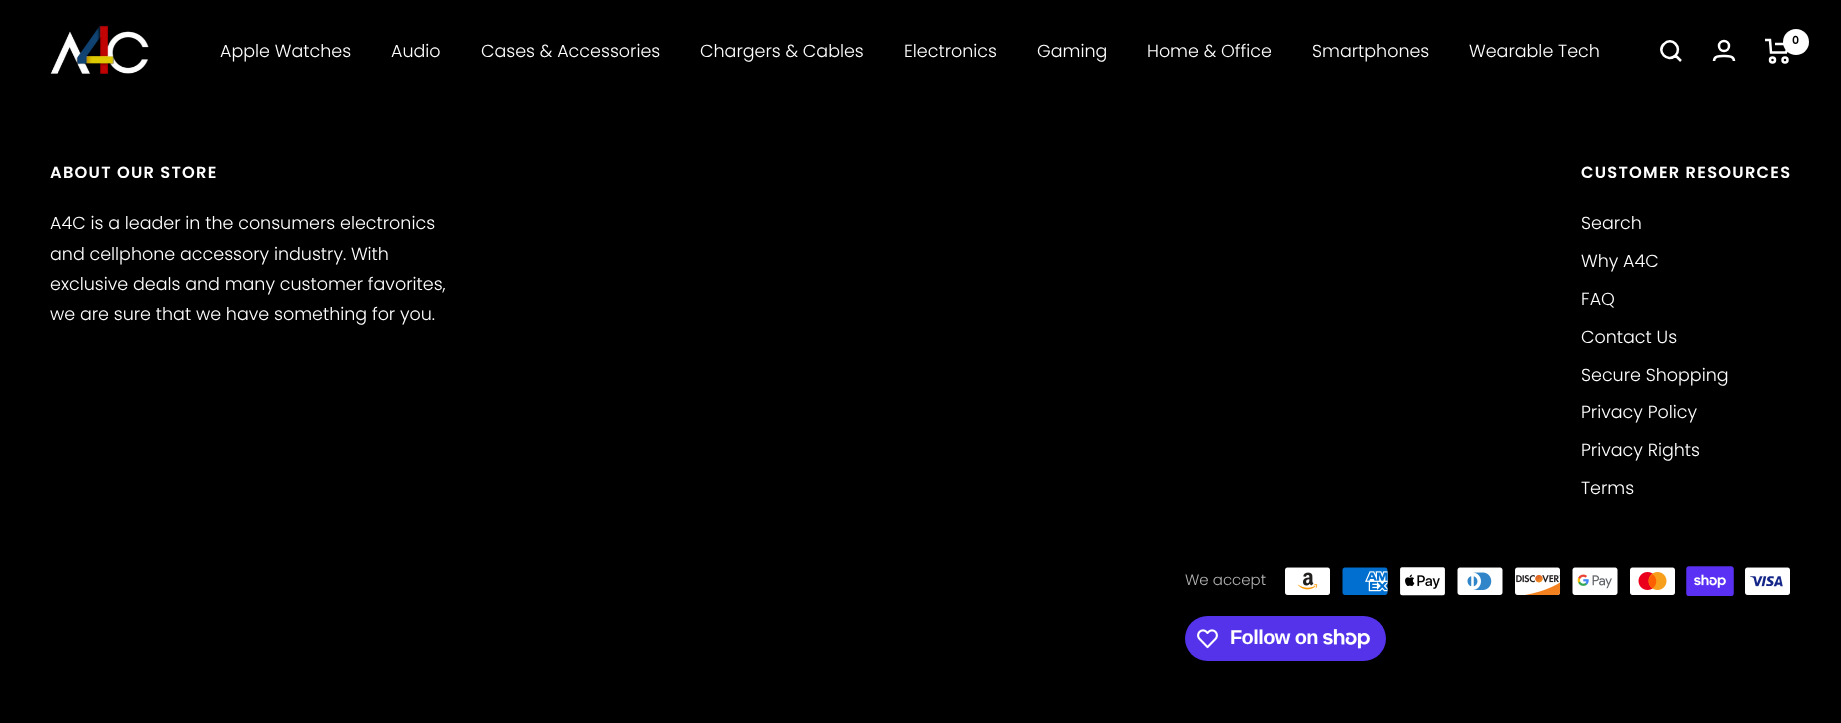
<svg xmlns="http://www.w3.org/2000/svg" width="1841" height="723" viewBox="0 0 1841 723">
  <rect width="100%" height="100%" fill="rgb(0,0,0)"/>
  <image x="50" y="25" width="99" height="49" href="pic1.png"/>
  <path d="M1675.5 55.5C1683 47.5 1671.5 36 1664 44C1656 51.5 1667.5 63 1675.5 55.5ZM1675.5 55.5L1681 61" fill="none" stroke="rgb(255,255,255)" stroke-width="2.5"/>
  <circle cx="1724" cy="46" r="5" fill="none" stroke="rgb(255,255,255)" stroke-width="2.5"/>
  <path d="M1714 61C1714 55.5 1720 56 1724 56C1727.5 56 1734 55.5 1734 61" fill="none" stroke="rgb(255,255,255)" stroke-width="2.5"/>
  <path d="M1765 40H1770L1771 52.5H1786L1789 44H1775" fill="none" stroke="rgb(255,255,255)" stroke-width="2.5"/>
  <circle cx="1772.5" cy="60" r="2.5" fill="none" stroke="rgb(255,255,255)" stroke-width="2.5"/>
  <circle cx="1785" cy="60" r="2.5" fill="none" stroke="rgb(255,255,255)" stroke-width="2.5"/>
  <circle cx="1796" cy="42" r="13" fill="rgb(255,255,255)"/>
  <text x="1792" y="44" font-family="Poppins" font-size="11" font-weight="600" fill="rgb(0,0,0)">0</text>
  <g font-family="Poppins" font-size="17.5" font-weight="300" fill="rgb(255,255,255)">
    <text x="220" y="57">Apple Watches</text>
    <text x="391" y="57">Audio</text>
    <text x="481" y="57">Cases &amp; Accessories</text>
    <text x="700" y="57">Chargers &amp; Cables</text>
    <text x="904" y="57">Electronics</text>
    <text x="1037" y="57">Gaming</text>
    <text x="1147" y="57">Home &amp; Office</text>
    <text x="1312" y="57">Smartphones</text>
    <text x="1469" y="57">Wearable Tech</text>
  </g>
  <text x="50" y="178" font-family="Poppins" font-size="16.25" font-weight="600" letter-spacing="1.25" fill="rgb(255,255,255)">ABOUT OUR STORE</text>
  <g font-family="Poppins" font-size="17.5" font-weight="300" fill="rgb(255,255,255)">
    <text>
      <tspan x="50" y="229">A4C is a leader in the consumers electronics</tspan>
      <tspan x="50" y="260">and cellphone accessory industry. With</tspan>
      <tspan x="50" y="290">exclusive deals and many customer favorites,</tspan>
      <tspan x="50" y="320">we are sure that we have something for you.</tspan>
    </text>
  </g>
  <text x="1581" y="178" font-family="Poppins" font-size="16.25" font-weight="600" letter-spacing="1.25" fill="rgb(255,255,255)">CUSTOMER RESOURCES</text>
  <g font-family="Poppins" font-size="17.5" font-weight="300" fill="rgb(255,255,255)">
    <text x="1581" y="229">Search</text>
    <text x="1581" y="267">Why A4C</text>
    <text x="1581" y="305">FAQ</text>
    <text x="1581" y="343">Contact Us</text>
    <text x="1581" y="381">Secure Shopping</text>
    <text x="1581" y="418">Privacy Policy</text>
    <text x="1581" y="456">Privacy Rights</text>
    <text x="1581" y="494">Terms</text>
  </g>
  <text x="1185" y="585" font-family="Poppins" font-size="15" font-weight="300" fill="rgb(179,179,179)">We accept</text>
  <image x="1285" y="567" width="45" height="28" href="pic2.png"/>
  <image x="1342" y="567" width="46" height="28" href="pic3.png"/>
  <image x="1400" y="567" width="45" height="29" href="pic4.png"/>
  <image x="1457" y="567" width="46" height="28" href="pic5.png"/>
  <image x="1515" y="567" width="46" height="28" href="pic6.png"/>
  <image x="1572" y="567" width="46" height="28" href="pic7.png"/>
  <image x="1630" y="567" width="45" height="28" href="pic8.png"/>
  <image x="1686" y="566" width="48" height="30" href="pic9.png"/>
  <image x="1745" y="567" width="45" height="28" href="pic10.png"/>
  <rect x="1185" y="616" width="201" height="45" rx="22.5" fill="rgb(84,51,235)"/>
  <image x="1197" y="629" width="21" height="20" href="pic11.png"/>
  <text x="1230" y="644" font-family="Liberation Sans" font-size="20" font-weight="bold" letter-spacing="-0.6" fill="rgb(255,255,255)">Follow on</text>
  <image x="1323" y="629" width="47" height="20" href="pic12.png"/>
</svg>
